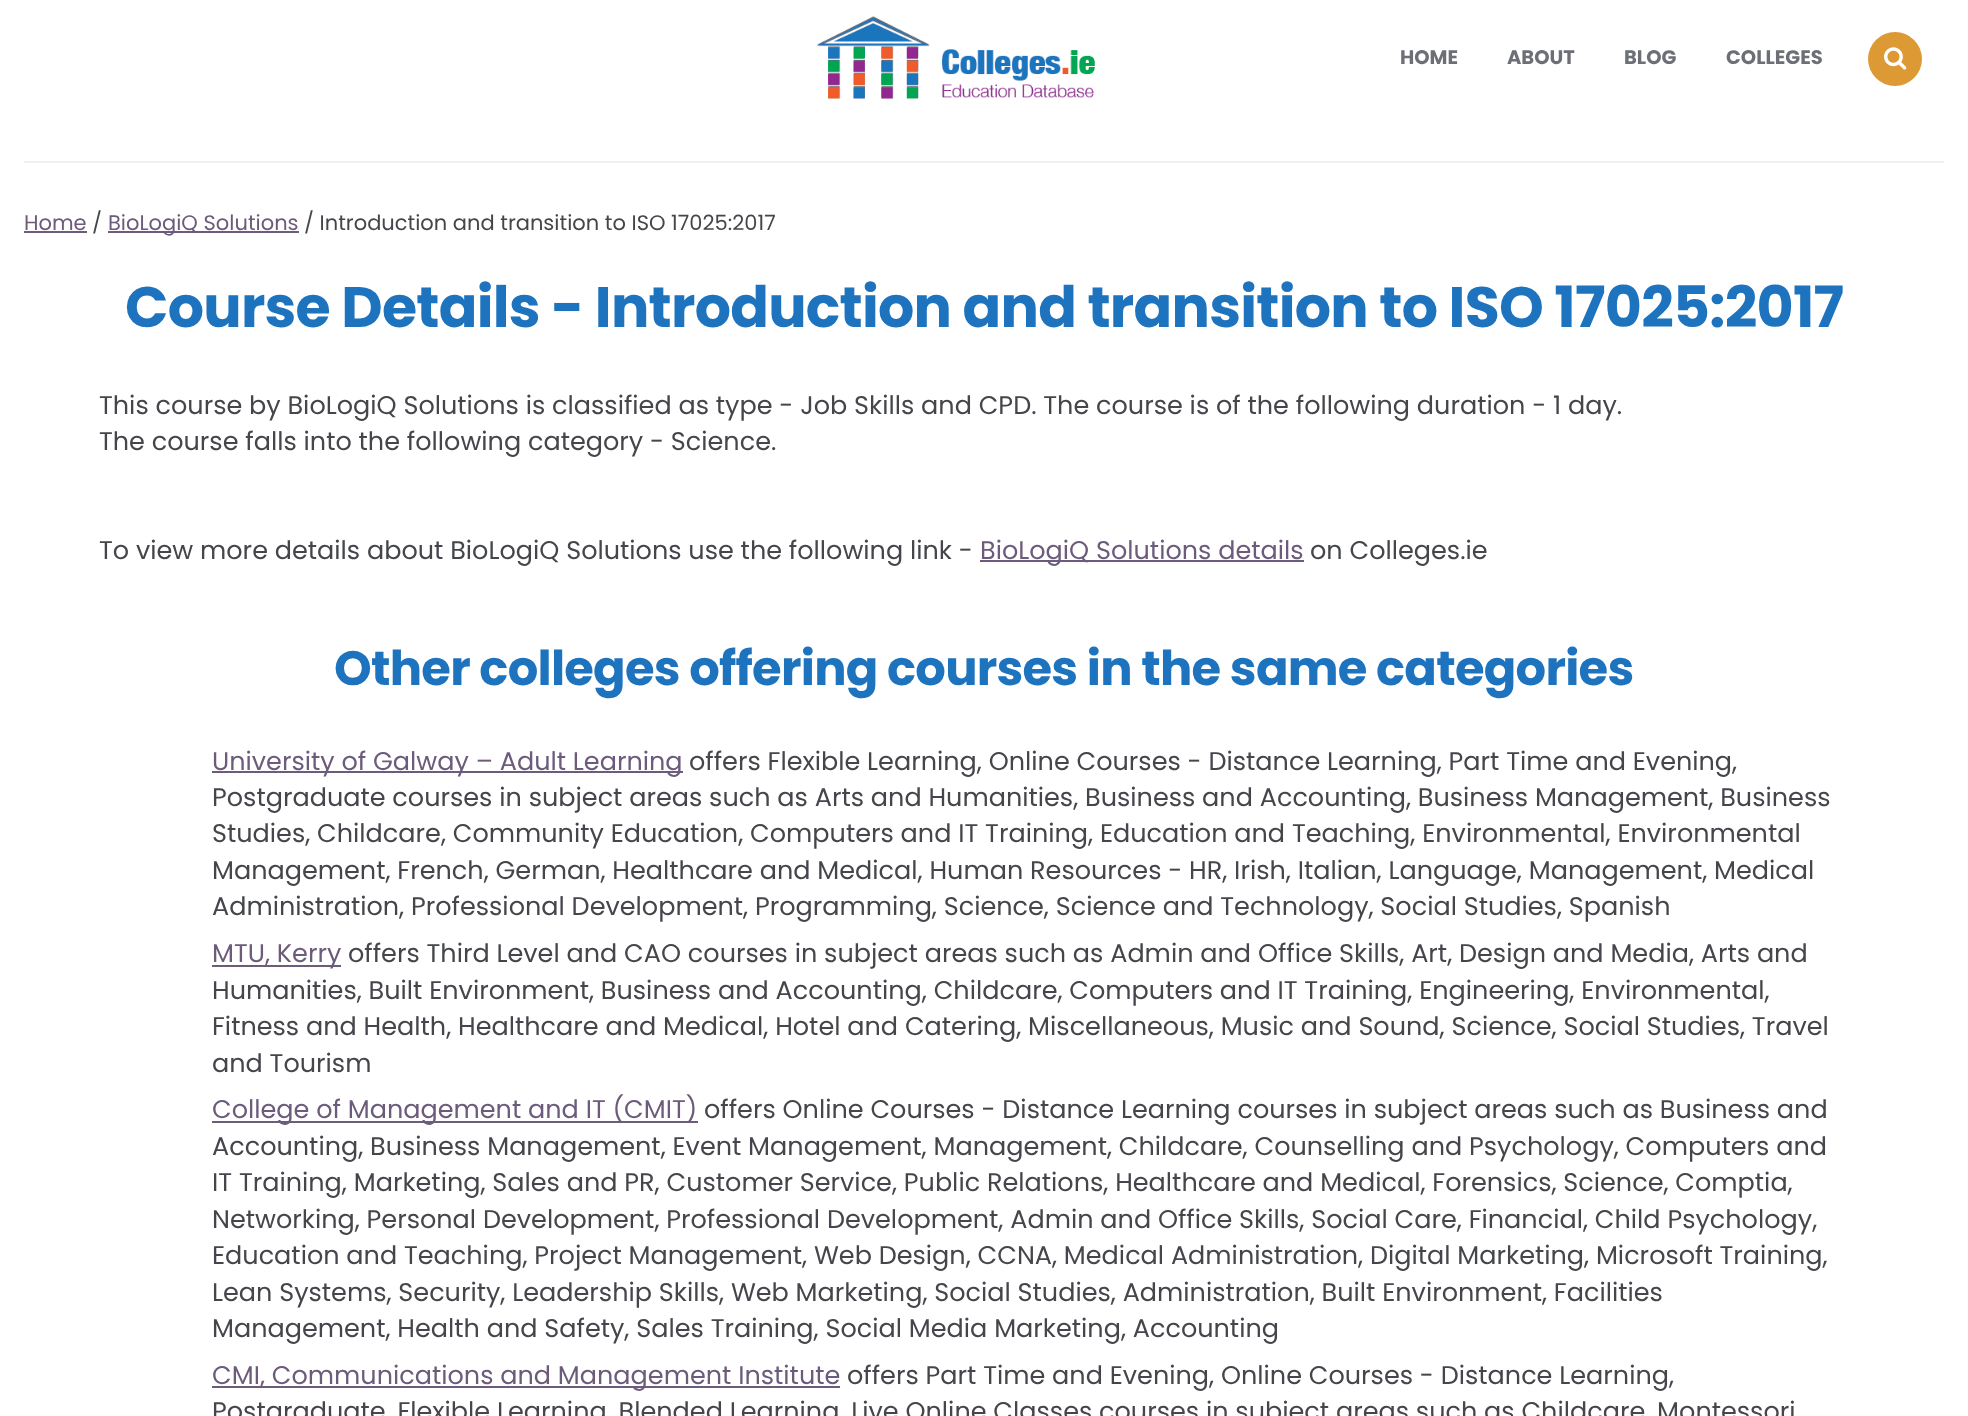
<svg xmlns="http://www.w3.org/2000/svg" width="1968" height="1416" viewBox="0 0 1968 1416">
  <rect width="100%" height="100%" fill="rgb(255,255,255)"/>
  <image x="817" y="16" width="278" height="83" href="pic1.png"/>
  <g font-family="Poppins" font-size="19.5" font-weight="bold" fill="rgb(108,111,118)">
    <text x="1400" y="64">HOME</text>
    <text x="1507" y="64">ABOUT</text>
    <text x="1624" y="64">BLOG</text>
    <text x="1726" y="64">COLLEGES</text>
  </g>
  <circle cx="1895" cy="59" r="27" fill="rgb(221,153,51)"/>
  <image x="1884" y="47" width="23" height="23" href="pic2.png"/>
  <rect x="24" y="161" width="1920" height="2" fill="rgb(241,241,241)"/>
  <text x="24" y="230" font-family="Poppins" font-size="21" fill="rgb(108,91,123)">Home</text>
  <rect x="24" y="231" width="63" height="2" fill="rgb(108,91,123)"/>
  <text x="92" y="230" font-family="Poppins" font-size="21" fill="rgb(69,70,75)">/</text>
  <rect x="108" y="231" width="191" height="2" fill="rgb(108,91,123)"/>
  <text x="108" y="230" font-family="Poppins" font-size="21" fill="rgb(108,91,123)">BioLogiQ Solutions</text>
  <text x="304" y="230" font-family="Poppins" font-size="21" fill="rgb(69,70,75)">/ Introduction and transition to ISO 17025:2017</text>
  <text x="125" y="327" font-family="Poppins" font-size="57" font-weight="bold" letter-spacing="-0.75" fill="rgb(30,115,190)">Course Details - Introduction and transition to ISO 17025:2017</text>
  <g font-family="Poppins" font-size="25.5" fill="rgb(69,70,75)">
    <text>
      <tspan x="99" y="414">This course by BioLogiQ Solutions is classified as type - Job Skills and CPD. The course is of the following duration - 1 day.</tspan>
      <tspan x="99" y="450">The course falls into the following category - Science.</tspan>
    </text>
    <text x="99" y="559">To view more details about BioLogiQ Solutions use the following link -</text>
  </g>
  <rect x="980" y="560" width="324" height="2" fill="rgb(108,91,123)"/>
  <text x="980" y="559" font-family="Poppins" font-size="25.5" fill="rgb(108,91,123)">BioLogiQ Solutions details</text>
  <text x="1310" y="559" font-family="Poppins" font-size="25.5" fill="rgb(69,70,75)">on Colleges.ie</text>
  <text x="334" y="685" font-family="Poppins" font-size="48" font-weight="bold" letter-spacing="-0.75" fill="rgb(30,115,190)">Other colleges offering courses in the same categories</text>
  <rect x="212" y="771" width="471" height="2" fill="rgb(108,91,123)"/>
  <text x="212" y="770" font-family="Poppins" font-size="25.5" fill="rgb(108,91,123)">University of Galway – Adult Learning</text>
  <g font-family="Poppins" font-size="25.5" fill="rgb(69,70,75)">
    <text x="689" y="770">offers Flexible Learning, Online Courses - Distance Learning, Part Time and Evening,</text>
    <text>
      <tspan x="212" y="806">Postgraduate courses in subject areas such as Arts and Humanities, Business and Accounting, Business Management, Business</tspan>
      <tspan x="212" y="842">Studies, Childcare, Community Education, Computers and IT Training, Education and Teaching, Environmental, Environmental</tspan>
      <tspan x="212" y="879">Management, French, German, Healthcare and Medical, Human Resources - HR, Irish, Italian, Language, Management, Medical</tspan>
      <tspan x="212" y="915">Administration, Professional Development, Programming, Science, Science and Technology, Social Studies, Spanish</tspan>
    </text>
  </g>
  <rect x="212" y="965" width="129" height="2" fill="rgb(108,91,123)"/>
  <text x="212" y="962" font-family="Poppins" font-size="25.5" fill="rgb(108,91,123)">MTU, Kerry</text>
  <g font-family="Poppins" font-size="25.5" fill="rgb(69,70,75)">
    <text x="348" y="962">offers Third Level and CAO courses in subject areas such as Admin and Office Skills, Art, Design and Media, Arts and</text>
    <text>
      <tspan x="212" y="999">Humanities, Built Environment, Business and Accounting, Childcare, Computers and IT Training, Engineering, Environmental,</tspan>
      <tspan x="212" y="1035">Fitness and Health, Healthcare and Medical, Hotel and Catering, Miscellaneous, Music and Sound, Science, Social Studies, Travel</tspan>
      <tspan x="212" y="1072">and Tourism</tspan>
    </text>
  </g>
  <rect x="212" y="1121" width="486" height="2" fill="rgb(108,91,123)"/>
  <text x="212" y="1118" font-family="Poppins" font-size="25.5" fill="rgb(108,91,123)">College of Management and IT (CMIT)</text>
  <g font-family="Poppins" font-size="25.5" fill="rgb(69,70,75)">
    <text x="704" y="1118">offers Online Courses - Distance Learning courses in subject areas such as Business and</text>
    <text>
      <tspan x="212" y="1155">Accounting, Business Management, Event Management, Management, Childcare, Counselling and Psychology, Computers and</tspan>
      <tspan x="212" y="1191">IT Training, Marketing, Sales and PR, Customer Service, Public Relations, Healthcare and Medical, Forensics, Science, Comptia,</tspan>
      <tspan x="212" y="1228">Networking, Personal Development, Professional Development, Admin and Office Skills, Social Care, Financial, Child Psychology,</tspan>
      <tspan x="212" y="1264">Education and Teaching, Project Management, Web Design, CCNA, Medical Administration, Digital Marketing, Microsoft Training,</tspan>
      <tspan x="212" y="1301">Lean Systems, Security, Leadership Skills, Web Marketing, Social Studies, Administration, Built Environment, Facilities</tspan>
      <tspan x="212" y="1337">Management, Health and Safety, Sales Training, Social Media Marketing, Accounting</tspan>
    </text>
  </g>
  <rect x="212" y="1386" width="628" height="2" fill="rgb(108,91,123)"/>
  <text x="212" y="1384" font-family="Poppins" font-size="25.5" fill="rgb(108,91,123)">CMI, Communications and Management Institute</text>
  <g font-family="Poppins" font-size="25.5" fill="rgb(69,70,75)">
    <text x="847" y="1384">offers Part Time and Evening, Online Courses - Distance Learning,</text>
    <text x="212" y="1420">Postgraduate, Flexible Learning, Blended Learning, Live Online Classes courses in subject areas such as Childcare, Montessori</text>
  </g>
</svg>
